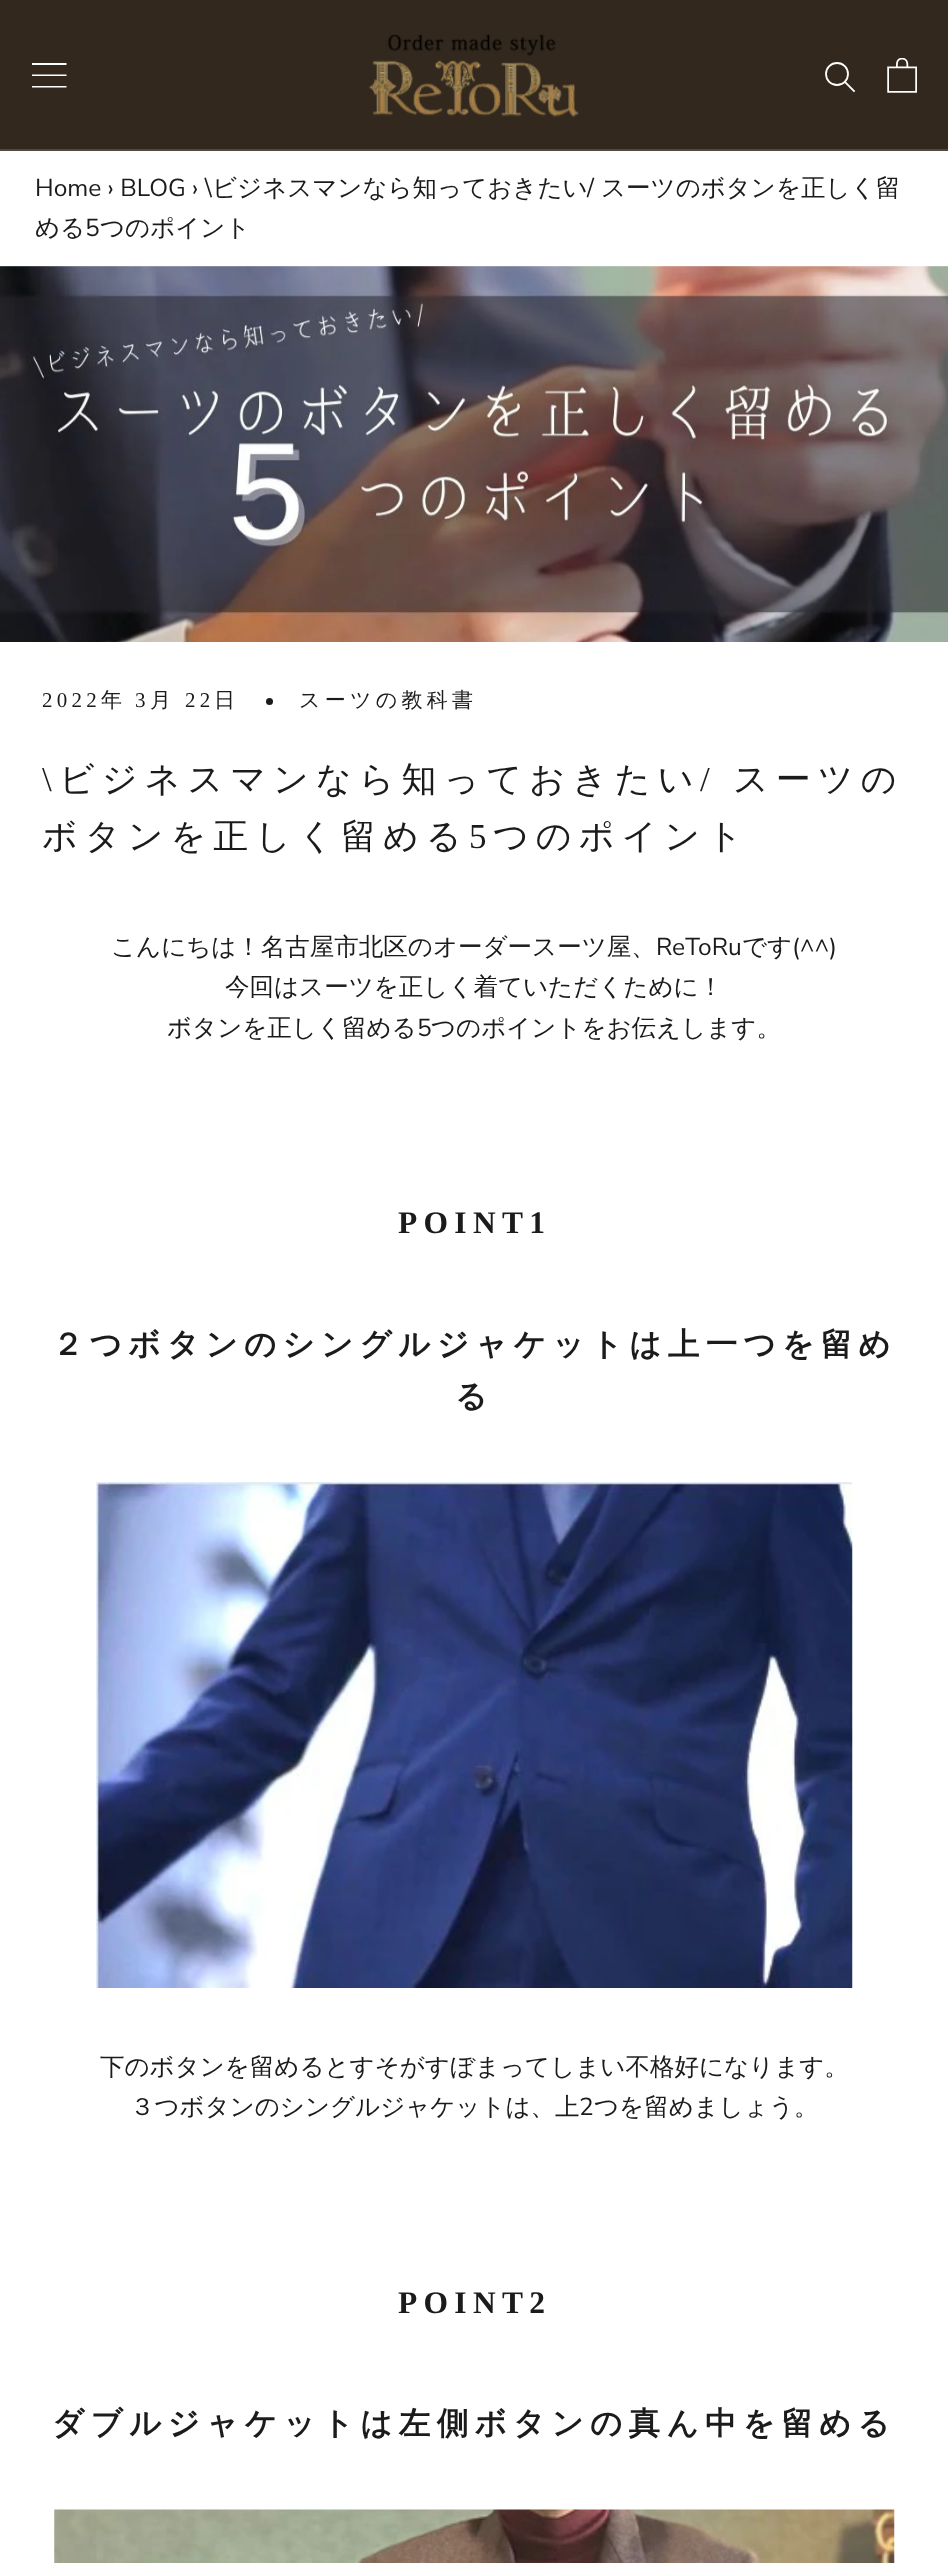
<svg xmlns="http://www.w3.org/2000/svg" width="948" height="2563" viewBox="0 0 948 2563">
  <defs>
    <clipPath id="clip1"><rect x="32" y="63" width="35" height="25"/></clipPath>
  </defs>
  <rect width="100%" height="100%" fill="rgb(255,255,255)"/>
  <rect x="0" y="0" width="948" height="149" fill="rgb(50,40,29)"/>
  <rect x="0" y="149" width="948" height="2" fill="rgb(81,72,63)"/>
  <g clip-path="url(#clip1)">
    <path d="M31.5 87.5V86H66.5V87.5ZM31.5 74.5H66.5V76H31.5ZM31.5 63H66.5V65H31.5Z" fill="rgb(255,255,255)"/>
  </g>
  <image x="369" y="34" width="210" height="84" href="pic1.png"/>
  <path d="M854 91L845 82" fill="none" stroke="rgb(255,255,255)" stroke-width="1.8" stroke-linecap="square"/>
  <circle cx="837" cy="74" r="11" fill="none" stroke="rgb(255,255,255)" stroke-width="1.8"/>
  <image x="887" y="58" width="30" height="35" href="pic2.png"/>
  <text x="35" y="196" font-family="Nunito Sans" font-size="24.5" fill="rgb(28,27,27)">Home › BLOG › \</text>
  <text x="212" y="196" font-family="WenQuanYi Zen Hei" font-size="24.5" font-weight="500" fill="rgb(28,27,27)">ビジネスマンなら知っておきたい</text>
  <text x="587" y="196" font-family="Nunito Sans" font-size="24.5" fill="rgb(28,27,27)">/</text>
  <g font-family="WenQuanYi Zen Hei" font-size="24.5" font-weight="500" fill="rgb(28,27,27)">
    <text x="601" y="196">スーツのボタンを正しく留</text>
    <text x="35" y="236">める</text>
  </g>
  <text x="85" y="236" font-family="Nunito Sans" font-size="24.5" fill="rgb(28,27,27)">5</text>
  <text x="100" y="236" font-family="WenQuanYi Zen Hei" font-size="24.5" font-weight="500" fill="rgb(28,27,27)">つのポイント</text>
  <image x="0" y="266" width="948" height="376" href="pic3.png"/>
  <text x="42" y="707" font-family="Liberation Serif" font-size="21" letter-spacing="4.25" fill="rgb(28,27,27)">2022</text>
  <text x="101" y="707" font-family="WenQuanYi Zen Hei" font-size="21" font-weight="500" letter-spacing="4.25" fill="rgb(28,27,27)">年</text>
  <text x="135" y="707" font-family="Liberation Serif" font-size="21" letter-spacing="4.25" fill="rgb(28,27,27)">3</text>
  <text x="150" y="707" font-family="WenQuanYi Zen Hei" font-size="21" font-weight="500" letter-spacing="4.25" fill="rgb(28,27,27)">月</text>
  <text x="185" y="707" font-family="Liberation Serif" font-size="21" letter-spacing="4.25" fill="rgb(28,27,27)">22</text>
  <text x="214" y="707" font-family="WenQuanYi Zen Hei" font-size="21" font-weight="500" letter-spacing="4.25" fill="rgb(28,27,27)">日</text>
  <circle cx="269.5" cy="701.5" r="3.5" fill="rgb(28,27,27)"/>
  <text x="299" y="707" font-family="WenQuanYi Zen Hei" font-size="21" font-weight="500" letter-spacing="4.25" fill="rgb(28,27,27)">スーツの教科書</text>
  <text x="42" y="791" font-family="Liberation Serif" font-size="35" letter-spacing="7" fill="rgb(28,27,27)">\</text>
  <text x="59" y="791" font-family="WenQuanYi Zen Hei" font-size="35" font-weight="500" letter-spacing="7" fill="rgb(28,27,27)">ビジネスマンなら知っておきたい</text>
  <text x="700" y="791" font-family="Liberation Serif" font-size="35" letter-spacing="7" fill="rgb(28,27,27)">/</text>
  <g font-family="WenQuanYi Zen Hei" font-size="35" font-weight="500" letter-spacing="7" fill="rgb(28,27,27)">
    <text x="733" y="791">スーツの</text>
    <text x="42" y="848">ボタンを正しく留める</text>
  </g>
  <text x="469" y="848" font-family="Liberation Serif" font-size="35" letter-spacing="7" fill="rgb(28,27,27)">5</text>
  <text x="493" y="848" font-family="WenQuanYi Zen Hei" font-size="35" font-weight="500" letter-spacing="7" fill="rgb(28,27,27)">つのポイント</text>
  <text x="111" y="955" font-family="WenQuanYi Zen Hei" font-size="24.5" font-weight="500" fill="rgb(28,27,27)">こんにちは！名古屋市北区のオーダースーツ屋、</text>
  <text x="656" y="955" font-family="Nunito Sans" font-size="24.5" fill="rgb(28,27,27)">ReToRu</text>
  <text x="742" y="955" font-family="WenQuanYi Zen Hei" font-size="24.5" font-weight="500" fill="rgb(28,27,27)">です</text>
  <text x="792" y="955" font-family="Nunito Sans" font-size="24.5" fill="rgb(28,27,27)">(^^)</text>
  <g font-family="WenQuanYi Zen Hei" font-size="24.5" font-weight="500" fill="rgb(28,27,27)">
    <text x="225" y="995">今回はスーツを正しく着ていただくために！</text>
    <text x="167" y="1036">ボタンを正しく留める</text>
  </g>
  <text x="417" y="1036" font-family="Nunito Sans" font-size="24.5" fill="rgb(28,27,27)">5</text>
  <text x="431" y="1036" font-family="WenQuanYi Zen Hei" font-size="24.5" font-weight="500" fill="rgb(28,27,27)">つのポイントをお伝えします。</text>
  <text x="398" y="1233" font-family="Liberation Serif" font-size="31.5" font-weight="bold" letter-spacing="6.3" fill="rgb(28,27,27)">POINT1</text>
  <g font-family="WenQuanYi Zen Hei" font-size="31.5" font-weight="bold" letter-spacing="6.3" fill="rgb(28,27,27)">
    <text x="52" y="1355">２つボタンのシングルジャケットは上一つを留め</text>
    <text x="455" y="1407">る</text>
  </g>
  <image x="96" y="1482" width="757" height="506" href="pic4.png"/>
  <g font-family="WenQuanYi Zen Hei" font-size="24.5" font-weight="500" fill="rgb(28,27,27)">
    <text x="100" y="2075">下のボタンを留めるとすそがすぼまってしまい不格好になります。</text>
    <text x="130" y="2115">３つボタンのシングルジャケットは、上</text>
  </g>
  <text x="579" y="2115" font-family="Nunito Sans" font-size="24.5" fill="rgb(28,27,27)">2</text>
  <text x="594" y="2115" font-family="WenQuanYi Zen Hei" font-size="24.5" font-weight="500" fill="rgb(28,27,27)">つを留めましょう。</text>
  <text x="398" y="2313" font-family="Liberation Serif" font-size="31.5" font-weight="bold" letter-spacing="6.3" fill="rgb(28,27,27)">POINT2</text>
  <text x="52" y="2434" font-family="WenQuanYi Zen Hei" font-size="31.5" font-weight="bold" letter-spacing="6.3" fill="rgb(28,27,27)">ダブルジャケットは左側ボタンの真ん中を留める</text>
  <image x="54" y="2509" width="841" height="54" href="pic5.png"/>
</svg>
